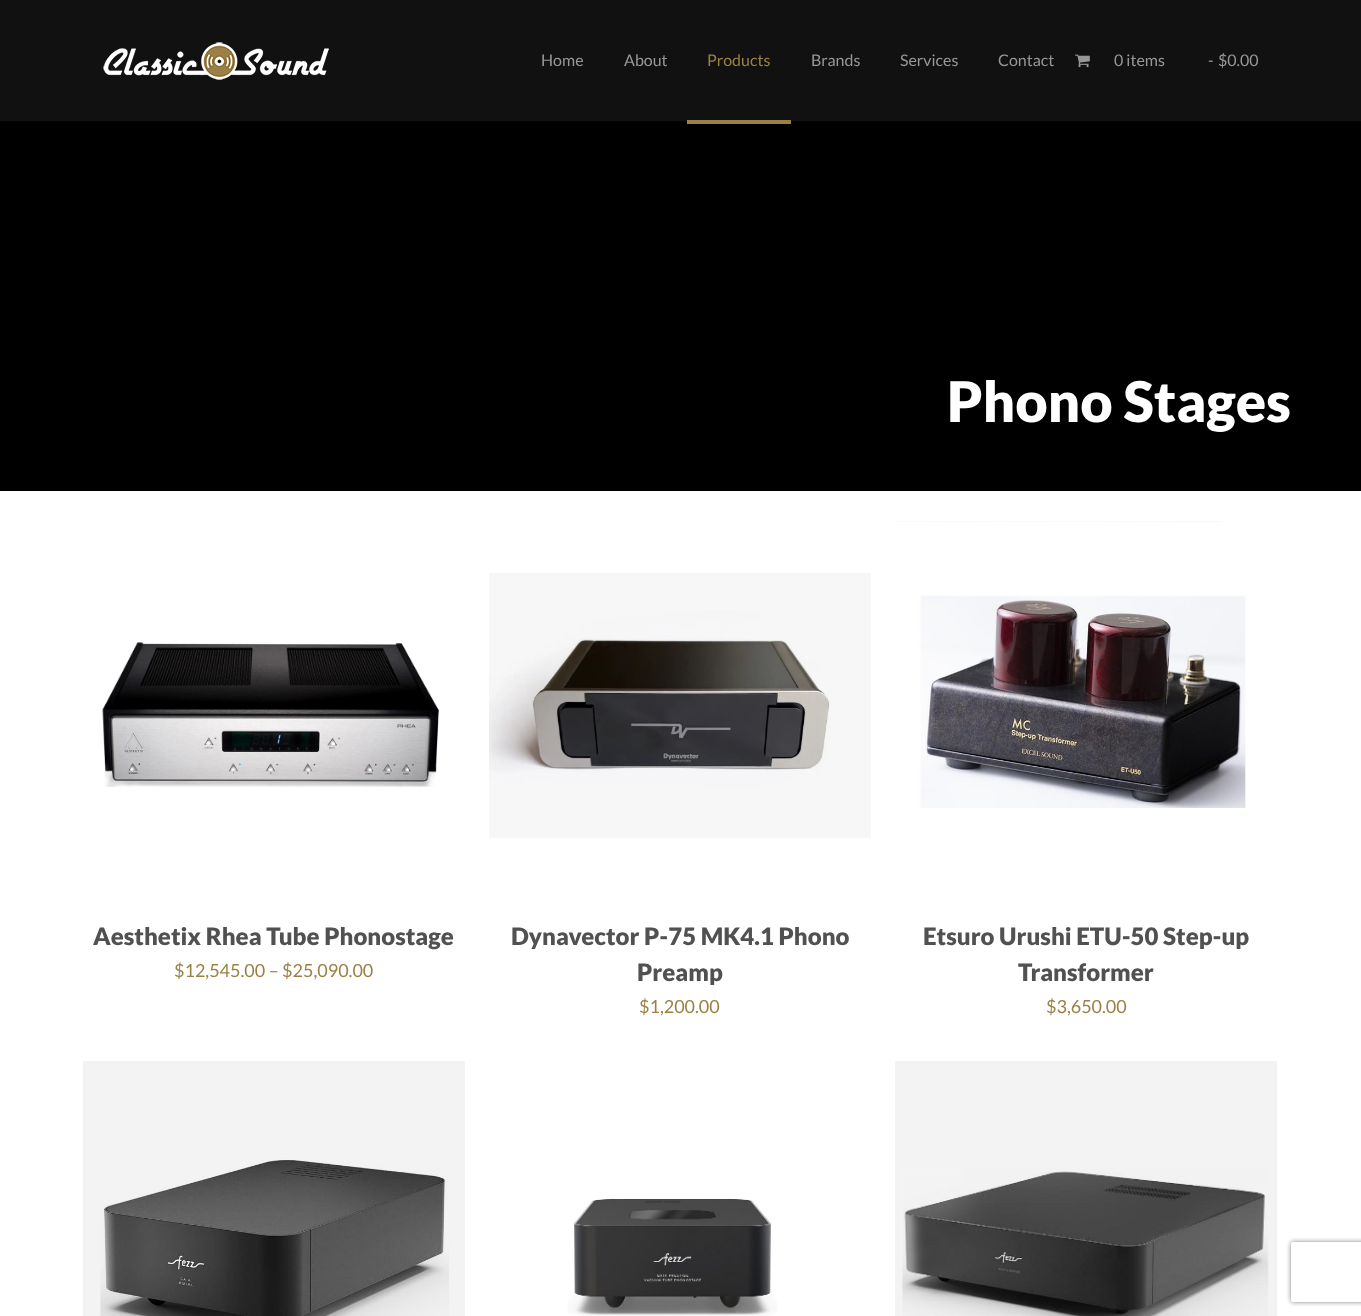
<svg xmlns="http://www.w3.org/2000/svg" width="1361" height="1316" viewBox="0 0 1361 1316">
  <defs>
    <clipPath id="clip1"><path d="M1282 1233H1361V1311H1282ZM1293 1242H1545C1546 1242 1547 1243 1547 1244V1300C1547 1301 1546 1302 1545 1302H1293C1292 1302 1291 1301 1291 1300V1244C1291 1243 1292 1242 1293 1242Z" clip-rule="evenodd"/></clipPath>
  </defs>
  <rect width="100%" height="100%" fill="rgb(255,255,255)"/>
  <rect x="0" y="121" width="1361" height="370" fill="rgb(0,0,0)"/>
  <rect x="0" y="0" width="1361" height="121" fill="rgb(17,17,17)"/>
  <image x="103" y="42" width="226" height="38" href="pic1.png"/>
  <g font-family="Lato" font-size="16" fill="rgb(151,151,151)">
    <text x="541" y="66">Home</text>
    <text x="624" y="66">About</text>
  </g>
  <text x="707" y="66" font-family="Lato" font-size="16" fill="rgb(155,129,67)">Products</text>
  <rect x="687" y="120" width="104" height="4" fill="rgb(155,129,67)"/>
  <g font-family="Lato" font-size="16" fill="rgb(151,151,151)">
    <text x="811" y="66">Brands</text>
    <text x="900" y="66">Services</text>
    <text x="998" y="66">Contact</text>
  </g>
  <image x="1075" y="54" width="15" height="14" href="pic2.png"/>
  <g font-family="Lato" font-size="16" fill="rgb(151,151,151)">
    <text x="1114" y="66">0 items</text>
    <text x="1208" y="66">-</text>
    <text x="1218" y="66">$0.00</text>
  </g>
  <text x="947" y="422" font-family="Lato" font-size="56" font-weight="900" fill="rgb(255,255,255)">Phono Stages</text>
  <image x="102" y="642" width="337" height="145" href="pic3.png"/>
  <text x="93" y="945" font-family="Lato" font-size="24" font-weight="900" fill="rgb(81,81,81)">Aesthetix Rhea Tube Phonostage</text>
  <text x="174" y="977" font-family="Lato" font-size="18" fill="rgb(155,129,67)">$12,545.00 – $25,090.00</text>
  <image x="489" y="573" width="382" height="265" href="pic4.png"/>
  <g font-family="Lato" font-size="24" font-weight="900" fill="rgb(81,81,81)">
    <text x="511" y="945">Dynavector P-75 MK4.1 Phono</text>
    <text x="637" y="981">Preamp</text>
  </g>
  <text x="639" y="1013" font-family="Lato" font-size="18" fill="rgb(155,129,67)">$1,200.00</text>
  <image x="895" y="521" width="351" height="287" href="pic5.png"/>
  <g font-family="Lato" font-size="24" font-weight="900" fill="rgb(81,81,81)">
    <text x="923" y="945">Etsuro Urushi ETU-50 Step-up</text>
    <text x="1018" y="981">Transformer</text>
  </g>
  <text x="1046" y="1013" font-family="Lato" font-size="18" fill="rgb(155,129,67)">$3,650.00</text>
  <image x="83" y="1061" width="382" height="255" href="pic6.png"/>
  <image x="567" y="1198" width="211" height="118" href="pic7.png"/>
  <image x="895" y="1061" width="382" height="255" href="pic8.png"/>
  <g clip-path="url(#clip1)">
    <rect x="1291" y="1242" width="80" height="60" rx="2" fill="rgb(128,128,128)" filter="blur(2.5px)"/>
  </g>
</svg>
